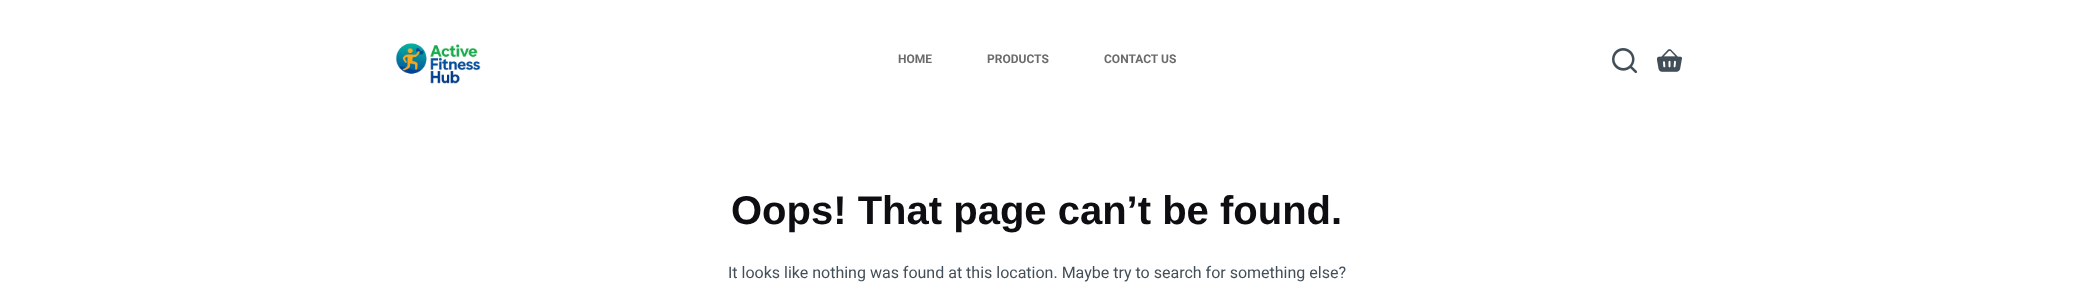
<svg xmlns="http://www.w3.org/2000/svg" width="2074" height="302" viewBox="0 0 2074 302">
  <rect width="100%" height="100%" fill="rgb(255,255,255)"/>
  <image x="395" y="43" width="86" height="41" href="pic1.png"/>
  <g font-family="Roboto" font-size="12" font-weight="bold" fill="rgb(107,107,107)">
    <text x="898" y="63">HOME</text>
    <text x="987" y="63">PRODUCTS</text>
    <text x="1104" y="63">CONTACT US</text>
  </g>
  <image x="1612" y="48" width="25" height="25" href="pic2.png"/>
  <image x="1657" y="49" width="25" height="23" href="pic3.png"/>
  <text x="731" y="224" font-family="Liberation Sans" font-size="40" font-weight="bold" fill="rgb(14,13,18)">Oops! That page can’t be found.</text>
  <text x="728" y="278" font-family="Roboto" font-size="16" fill="rgb(67,79,88)">It looks like nothing was found at this location. Maybe try to search for something else?</text>
</svg>
